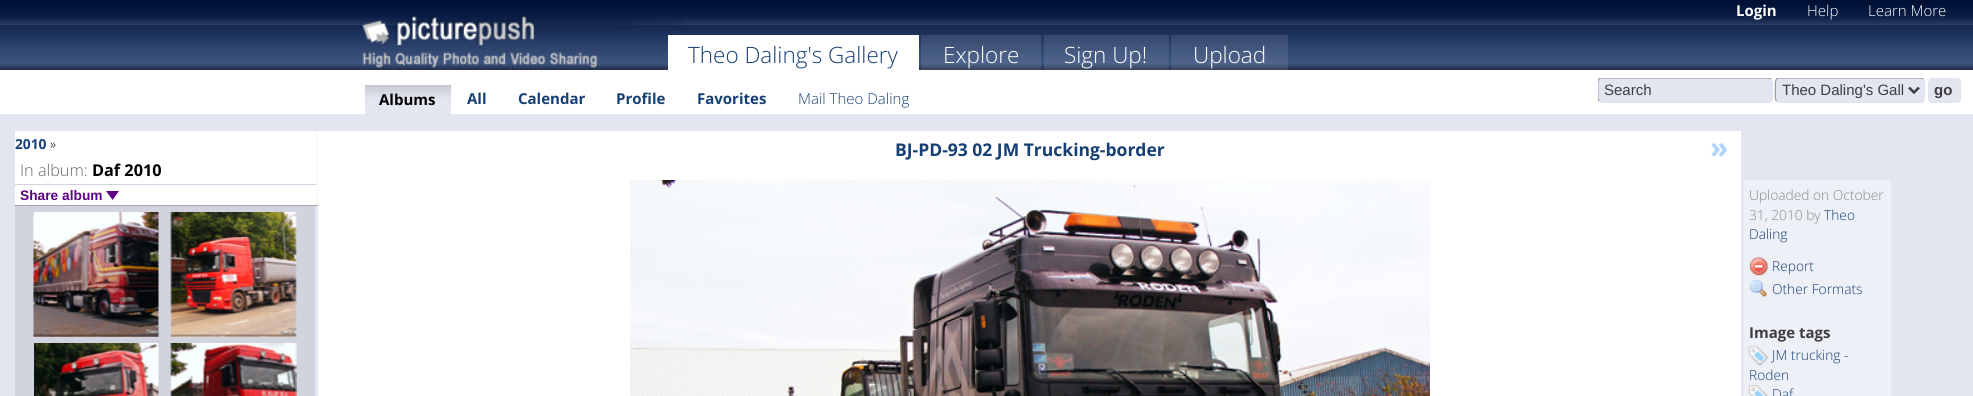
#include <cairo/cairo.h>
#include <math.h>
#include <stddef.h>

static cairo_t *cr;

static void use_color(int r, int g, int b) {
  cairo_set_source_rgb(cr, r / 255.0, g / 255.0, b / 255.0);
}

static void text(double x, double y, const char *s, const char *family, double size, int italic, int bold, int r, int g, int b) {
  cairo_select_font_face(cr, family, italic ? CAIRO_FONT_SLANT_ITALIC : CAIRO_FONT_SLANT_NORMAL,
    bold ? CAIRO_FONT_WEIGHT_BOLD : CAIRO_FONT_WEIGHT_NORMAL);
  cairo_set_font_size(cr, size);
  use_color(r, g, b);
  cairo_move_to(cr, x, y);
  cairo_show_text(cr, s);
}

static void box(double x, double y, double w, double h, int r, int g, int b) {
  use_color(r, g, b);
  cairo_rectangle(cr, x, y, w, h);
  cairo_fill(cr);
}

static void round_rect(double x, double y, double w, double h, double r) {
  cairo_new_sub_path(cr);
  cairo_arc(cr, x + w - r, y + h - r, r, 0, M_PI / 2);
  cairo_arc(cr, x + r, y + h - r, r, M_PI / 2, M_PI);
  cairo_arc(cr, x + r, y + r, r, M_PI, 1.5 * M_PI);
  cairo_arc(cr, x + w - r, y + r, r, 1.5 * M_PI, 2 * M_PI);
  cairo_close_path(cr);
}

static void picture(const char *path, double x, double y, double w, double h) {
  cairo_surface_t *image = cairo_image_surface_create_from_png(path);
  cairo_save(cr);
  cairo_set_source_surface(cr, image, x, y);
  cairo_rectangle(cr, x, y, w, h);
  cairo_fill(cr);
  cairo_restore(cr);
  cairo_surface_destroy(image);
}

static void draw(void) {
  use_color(227, 230, 241);
  cairo_paint(cr);
  picture("img_01.png", 0, 0, 1973, 70);
  picture("img_02.png", 362, 10, 322, 60);
  box(668, 35, 251, 35, 255, 255, 255);
  cairo_set_source_rgba(cr, 1, 1, 1, 0.1);
  cairo_rectangle(cr, 921, 35, 120, 35);
  cairo_fill(cr);
  cairo_rectangle(cr, 1044, 35, 125, 35);
  cairo_fill(cr);
  cairo_rectangle(cr, 1171, 35, 117, 35);
  cairo_fill(cr);
  box(0, 70, 1973, 44, 255, 255, 255);
  box(365, 85, 86, 29, 227, 230, 241);
  picture("img_03.png", 363, 85, 89, 12);
  box(364, 84, 1, 13, 255, 255, 255);
  use_color(227, 230, 241);
  round_rect(1598, 78, 175, 25, 4);
  cairo_fill(cr);
  cairo_new_path(cr);
  cairo_move_to(cr, 1771, 79);
  cairo_curve_to(cr, 1773, 81, 1772, 87.5, 1772, 90);
  cairo_curve_to(cr, 1772, 92.5, 1773.5, 101, 1769.5, 102);
  cairo_line_to(cr, 1601, 102);
  cairo_line_to(cr, 1599, 101);
  cairo_set_line_width(cr, 1.2);
  cairo_stroke(cr);
  cairo_save(cr);
  cairo_rectangle(cr, 1598, 78, 363, 30);
  cairo_clip(cr);
  cairo_new_path(cr);
  cairo_move_to(cr, 1599, 101);
  cairo_curve_to(cr, 1597, 99, 1598, 92.5, 1598, 90);
  cairo_curve_to(cr, 1598, 87.5, 1596.5, 79, 1600.5, 78);
  cairo_line_to(cr, 1769, 78);
  cairo_line_to(cr, 1771, 79);
  use_color(151, 153, 161);
  cairo_stroke(cr);
  cairo_restore(cr);
  round_rect(1775, 78, 150, 25, 4);
  cairo_fill(cr);
  cairo_new_path(cr);
  cairo_move_to(cr, 1923.5, 79);
  cairo_curve_to(cr, 1925.5, 81, 1924.5, 90, 1924.5, 93);
  cairo_curve_to(cr, 1924.5, 95.5, 1925.5, 102, 1921, 102);
  cairo_line_to(cr, 1779, 102);
  cairo_line_to(cr, 1776.5, 101);
  cairo_stroke(cr);
  cairo_save(cr);
  cairo_rectangle(cr, 1598, 78, 363, 30);
  cairo_clip(cr);
  cairo_new_path(cr);
  cairo_move_to(cr, 1776.5, 101);
  cairo_curve_to(cr, 1774.5, 99, 1775.5, 90, 1775.5, 87);
  cairo_curve_to(cr, 1775.5, 84.5, 1774.5, 78, 1779, 78);
  cairo_line_to(cr, 1921, 78);
  cairo_line_to(cr, 1923.5, 79);
  use_color(151, 153, 161);
  cairo_stroke(cr);
  cairo_restore(cr);
  cairo_new_path(cr);
  cairo_move_to(cr, 1909, 87.5);
  cairo_line_to(cr, 1914, 92.5);
  cairo_line_to(cr, 1919, 87.5);
  use_color(62, 62, 62);
  cairo_set_line_width(cr, 2.5);
  cairo_stroke(cr);
  use_color(227, 230, 241);
  round_rect(1928.5, 78.5, 32, 24, 3.5);
  cairo_fill_preserve(cr);
  cairo_set_line_width(cr, 1);
  cairo_stroke(cr);
  box(15, 131, 303, 74, 255, 255, 255);
  box(316, 131, 1, 75, 243, 243, 243);
  box(15, 205, 303, 1, 164, 164, 164);
  box(15, 184, 301, 1, 208, 208, 224);
  use_color(94, 0, 133);
  cairo_new_path(cr);
  cairo_move_to(cr, 106, 191);
  cairo_line_to(cr, 119, 191);
  cairo_line_to(cr, 112.5, 200);
  cairo_close_path(cr);
  cairo_fill(cr);
  box(15, 206, 300, 190, 209, 212, 222);
  picture("img_04.png", 33, 212, 126, 125);
  picture("img_05.png", 170, 212, 127, 125);
  picture("img_06.png", 34, 343, 125, 53);
  picture("img_07.png", 170, 343, 127, 53);
  box(318, 131, 1423, 265, 255, 255, 255);
  picture("img_08.png", 630, 180, 800, 216);
  box(1744, 180, 147, 216, 238, 240, 247);
  picture("img_09.png", 1749, 257, 19, 19);
  picture("img_10.png", 1749, 279, 18, 19);
  picture("img_11.png", 1748, 346, 21, 20);
  picture("img_12.png", 1748, 385, 20, 11);
  text(688, 63, "Theo Daling's Gallery", "Open Sans Light", 22.5, 0, 0, 22, 63, 115);
  text(943, 63, "Explore", "Open Sans Light", 22.5, 0, 0, 255, 255, 255);
  text(1064, 63, "Sign Up!", "Open Sans Light", 22.5, 0, 0, 255, 255, 255);
  text(1193, 63, "Upload", "Open Sans Light", 22.5, 0, 0, 255, 255, 255);
  text(1736, 16, "Login", "Open Sans", 15, 0, 1, 255, 255, 255);
  text(1807, 16, "Help", "Open Sans Light", 15, 0, 0, 255, 255, 255);
  text(1868, 16, "Learn More", "Open Sans Light", 15, 0, 0, 255, 255, 255);
  text(379, 105, "Albums", "Open Sans", 15, 0, 1, 0, 0, 0);
  text(467, 104, "All", "Open Sans", 15, 0, 1, 22, 63, 115);
  text(518, 104, "Calendar", "Open Sans", 15, 0, 1, 22, 63, 115);
  text(616, 104, "Profile", "Open Sans", 15, 0, 1, 22, 63, 115);
  text(697, 104, "Favorites", "Open Sans", 15, 0, 1, 22, 63, 115);
  text(798, 104, "Mail Theo Daling", "Open Sans Light", 15, 0, 0, 22, 63, 115);
  text(1604, 95, "Search", "Liberation Sans", 15, 0, 0, 62, 62, 65);
  text(1782, 95, "Theo Daling's Gall", "Liberation Sans", 15, 0, 0, 62, 62, 65);
  text(1934, 95, "go", "Liberation Sans", 15, 0, 1, 62, 62, 65);
  text(15, 149, "2010", "Open Sans", 13.75, 0, 1, 22, 63, 115);
  text(50, 149, "»", "Open Sans Light", 13.75, 0, 0, 0, 0, 0);
  text(20, 176, "In album:", "Open Sans Light", 16.25, 0, 0, 102, 102, 102);
  text(92, 176, "Daf 2010", "Open Sans", 16.25, 0, 1, 0, 0, 0);
  text(20, 200, "Share album", "Liberation Sans", 13.75, 0, 1, 94, 0, 133);
  text(895, 156, "BJ-PD-93 02 JM Trucking-border", "Open Sans", 17.5, 0, 1, 22, 63, 115);
  text(1710, 158, "»", "Open Sans", 30, 0, 1, 176, 212, 254);
  text(1749, 200, "Uploaded on October", "Open Sans Light", 13.75, 0, 0, 136, 136, 136);
  text(1749, 220, "31, 2010 by", "Open Sans Light", 13.75, 0, 0, 136, 136, 136);
  text(1824, 220, "Theo", "Open Sans Light", 13.75, 0, 0, 22, 63, 115);
  text(1749, 239, "Daling", "Open Sans Light", 13.75, 0, 0, 22, 63, 115);
  text(1772, 271, "Report", "Open Sans Light", 13.75, 0, 0, 22, 63, 115);
  text(1772, 294, "Other Formats", "Open Sans Light", 13.75, 0, 0, 22, 63, 115);
  text(1749, 338, "Image tags", "Open Sans", 15, 0, 1, 62, 62, 65);
  text(1772, 360, "JM trucking -", "Open Sans Light", 13.75, 0, 0, 22, 63, 115);
  text(1749, 380, "Roden", "Open Sans Light", 13.75, 0, 0, 22, 63, 115);
  text(1772, 399, "Daf", "Open Sans Light", 13.75, 0, 0, 22, 63, 115);
}

int main(void) {
  cairo_surface_t *surface = cairo_image_surface_create(CAIRO_FORMAT_RGB24, 1973, 396);
  cr = cairo_create(surface);
  cairo_font_options_t *options = cairo_font_options_create();
  cairo_font_options_set_hint_metrics(options, CAIRO_HINT_METRICS_OFF);
  cairo_font_options_set_hint_style(options, CAIRO_HINT_STYLE_NONE);
  cairo_set_font_options(cr, options);
  cairo_set_miter_limit(cr, 4);
  draw();
  cairo_surface_write_to_png(surface, "out.png");
  cairo_font_options_destroy(options);
  cairo_destroy(cr);
  cairo_surface_destroy(surface);
  return 0;
}
